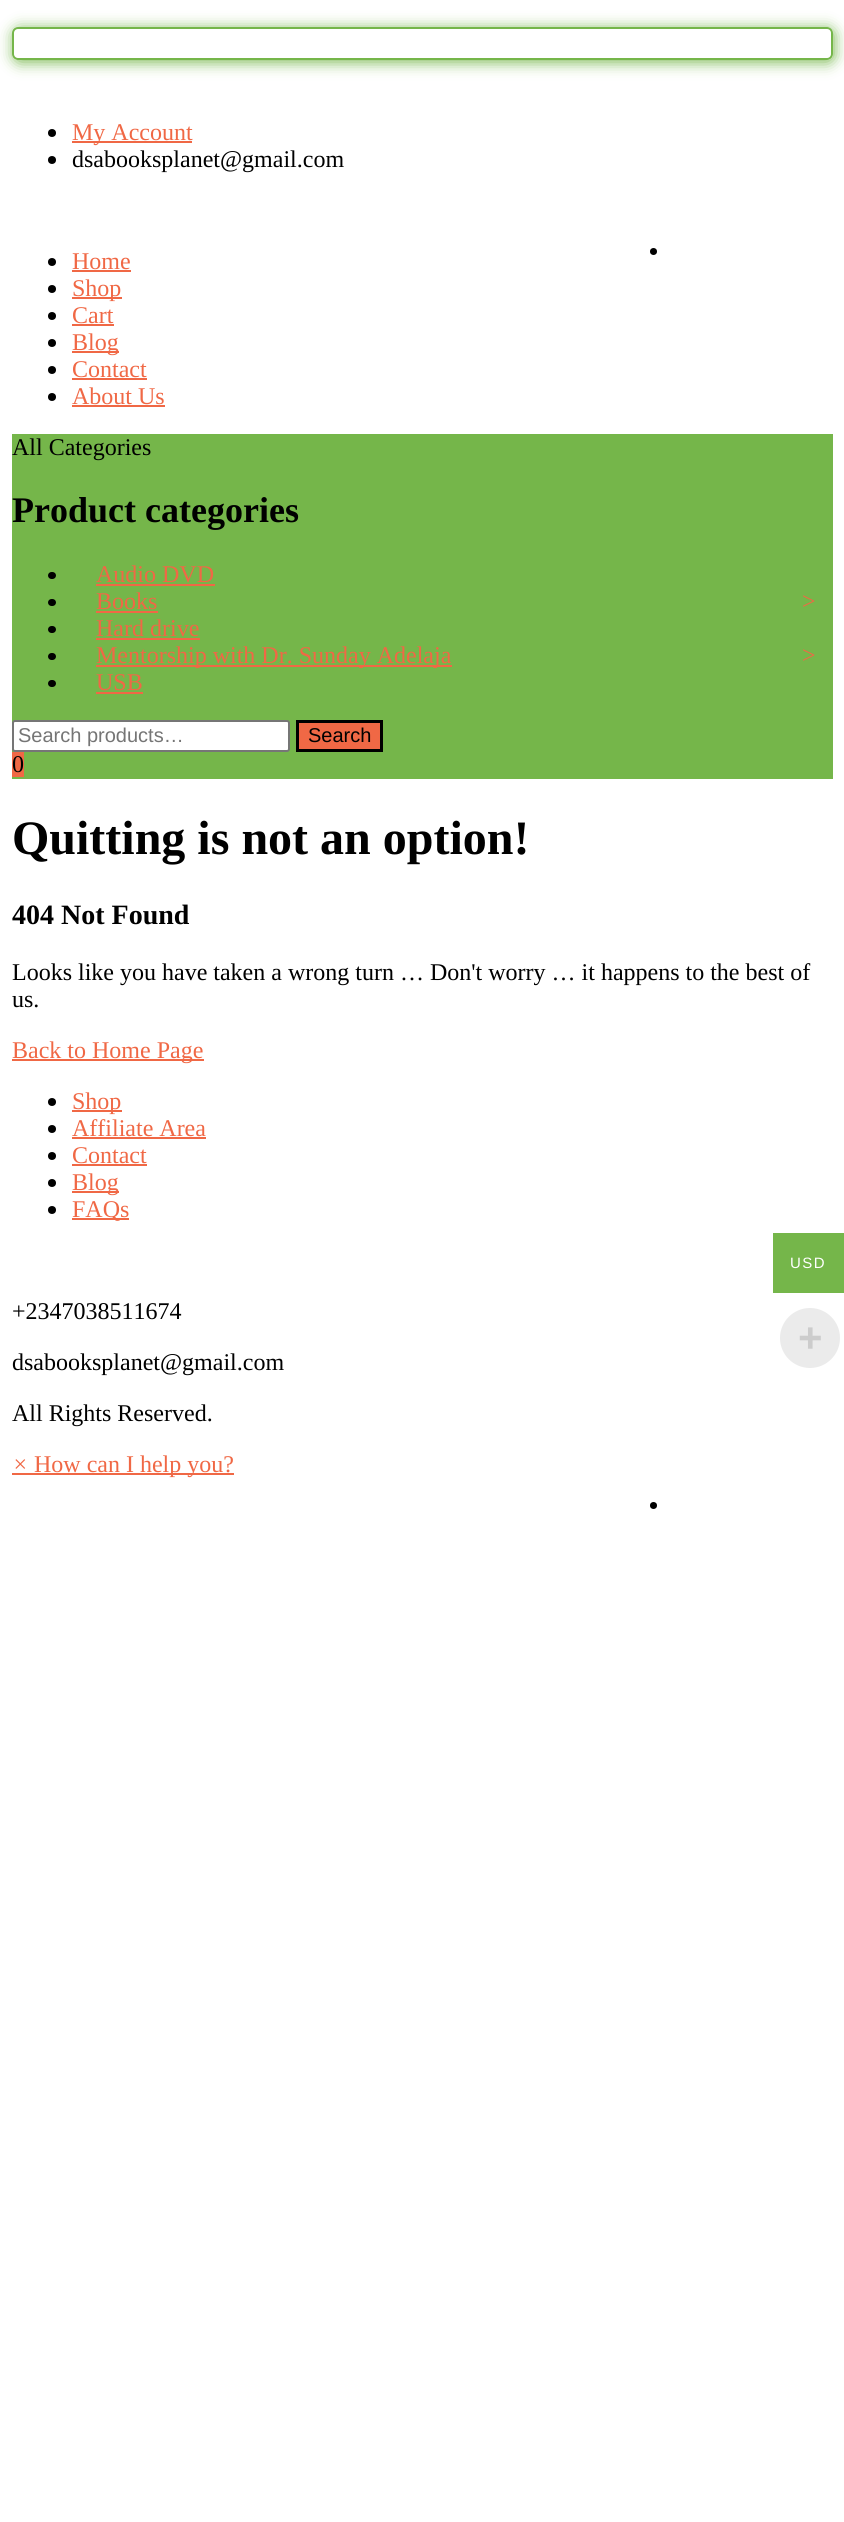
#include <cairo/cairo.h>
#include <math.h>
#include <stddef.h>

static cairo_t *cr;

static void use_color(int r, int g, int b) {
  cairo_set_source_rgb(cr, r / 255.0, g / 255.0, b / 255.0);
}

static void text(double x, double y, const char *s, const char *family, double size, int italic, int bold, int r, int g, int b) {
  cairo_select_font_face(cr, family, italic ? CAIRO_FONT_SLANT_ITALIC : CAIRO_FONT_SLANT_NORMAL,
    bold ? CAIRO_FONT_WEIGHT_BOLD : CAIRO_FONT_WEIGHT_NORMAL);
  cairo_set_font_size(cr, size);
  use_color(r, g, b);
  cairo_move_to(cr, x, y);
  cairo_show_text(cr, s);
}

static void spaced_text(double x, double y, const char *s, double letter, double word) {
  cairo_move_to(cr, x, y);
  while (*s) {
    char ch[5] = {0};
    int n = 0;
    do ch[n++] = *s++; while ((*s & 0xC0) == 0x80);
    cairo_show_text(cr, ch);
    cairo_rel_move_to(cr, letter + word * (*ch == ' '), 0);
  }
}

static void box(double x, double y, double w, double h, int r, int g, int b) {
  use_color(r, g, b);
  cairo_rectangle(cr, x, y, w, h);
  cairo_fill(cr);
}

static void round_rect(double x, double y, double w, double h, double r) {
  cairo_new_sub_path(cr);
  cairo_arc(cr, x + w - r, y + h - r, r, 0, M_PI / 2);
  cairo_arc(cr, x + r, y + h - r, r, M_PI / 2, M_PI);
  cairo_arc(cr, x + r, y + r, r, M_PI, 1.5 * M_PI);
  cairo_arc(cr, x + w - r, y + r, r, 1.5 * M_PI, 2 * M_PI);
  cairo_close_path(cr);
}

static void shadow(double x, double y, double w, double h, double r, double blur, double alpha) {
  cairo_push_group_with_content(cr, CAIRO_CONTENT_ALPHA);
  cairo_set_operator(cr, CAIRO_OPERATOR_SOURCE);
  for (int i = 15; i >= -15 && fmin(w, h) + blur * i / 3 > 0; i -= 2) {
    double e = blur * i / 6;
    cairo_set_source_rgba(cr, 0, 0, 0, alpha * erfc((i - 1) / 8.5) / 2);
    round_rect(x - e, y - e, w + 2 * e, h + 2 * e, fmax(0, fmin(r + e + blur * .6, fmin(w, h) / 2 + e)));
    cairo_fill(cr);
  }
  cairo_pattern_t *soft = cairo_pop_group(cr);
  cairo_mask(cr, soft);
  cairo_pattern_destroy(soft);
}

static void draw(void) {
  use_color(255, 255, 255);
  cairo_paint(cr);
  cairo_save(cr);
  cairo_set_fill_rule(cr, CAIRO_FILL_RULE_EVEN_ODD);
  cairo_new_path(cr);
  cairo_move_to(cr, 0, 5);
  cairo_line_to(cr, 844, 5);
  cairo_line_to(cr, 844, 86);
  cairo_line_to(cr, 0, 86);
  cairo_close_path(cr);
  cairo_move_to(cr, 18, 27);
  cairo_line_to(cr, 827, 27);
  cairo_curve_to(cr, 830.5, 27, 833, 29.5, 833, 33);
  cairo_line_to(cr, 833, 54);
  cairo_curve_to(cr, 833, 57.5, 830.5, 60, 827, 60);
  cairo_line_to(cr, 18, 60);
  cairo_curve_to(cr, 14.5, 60, 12, 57.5, 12, 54);
  cairo_line_to(cr, 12, 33);
  cairo_curve_to(cr, 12, 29.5, 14.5, 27, 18, 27);
  cairo_close_path(cr);
  cairo_clip(cr);
  use_color(117, 182, 74);
  shadow(14, 29, 820, 33, 6, 7.5, 1);
  cairo_restore(cr);
  round_rect(13, 28, 819, 31, 5);
  use_color(117, 182, 74);
  cairo_stroke(cr);
  use_color(0, 0, 0);
  cairo_arc(cr, 52, 133, 4, 0, 2 * M_PI);
  cairo_fill(cr);
  box(72, 141, 120, 2, 240, 104, 69);
  use_color(0, 0, 0);
  cairo_arc(cr, 52, 160, 4, 0, 2 * M_PI);
  cairo_fill(cr);
  cairo_arc(cr, 653.5, 251.5, 3.5, 0, 2 * M_PI);
  cairo_fill(cr);
  cairo_arc(cr, 52, 262, 4, 0, 2 * M_PI);
  cairo_fill(cr);
  box(72, 270, 59, 2, 240, 104, 69);
  use_color(0, 0, 0);
  cairo_arc(cr, 52, 289, 4, 0, 2 * M_PI);
  cairo_fill(cr);
  box(72, 297, 50, 2, 240, 104, 69);
  use_color(0, 0, 0);
  cairo_arc(cr, 52, 316, 4, 0, 2 * M_PI);
  cairo_fill(cr);
  box(72, 324, 42, 2, 240, 104, 69);
  use_color(0, 0, 0);
  cairo_arc(cr, 52, 343, 4, 0, 2 * M_PI);
  cairo_fill(cr);
  box(72, 351, 47, 2, 240, 104, 69);
  use_color(0, 0, 0);
  cairo_arc(cr, 52, 370, 4, 0, 2 * M_PI);
  cairo_fill(cr);
  box(72, 378, 75, 2, 240, 104, 69);
  use_color(0, 0, 0);
  cairo_arc(cr, 52, 397, 4, 0, 2 * M_PI);
  cairo_fill(cr);
  box(72, 405, 93, 2, 240, 104, 69);
  box(12, 434, 821, 345, 117, 182, 74);
  use_color(0, 0, 0);
  round_rect(48, 572, 8, 7, 3.5);
  cairo_fill(cr);
  box(96, 584, 119, 2, 240, 104, 69);
  use_color(0, 0, 0);
  round_rect(48, 599, 8, 7, 3.5);
  cairo_fill(cr);
  box(96, 611, 62, 2, 240, 104, 69);
  use_color(0, 0, 0);
  round_rect(48, 626, 8, 7, 3.5);
  cairo_fill(cr);
  box(96, 638, 104, 2, 240, 104, 69);
  use_color(0, 0, 0);
  round_rect(48, 653, 8, 7, 3.5);
  cairo_fill(cr);
  box(96, 665, 356, 2, 240, 104, 69);
  use_color(0, 0, 0);
  round_rect(48, 680, 8, 7, 3.5);
  cairo_fill(cr);
  box(96, 692, 47, 2, 240, 104, 69);
  use_color(255, 255, 255);
  round_rect(13, 721, 276, 30, 2);
  cairo_fill_preserve(cr);
  use_color(118, 118, 118);
  cairo_stroke(cr);
  use_color(240, 104, 69);
  cairo_rectangle(cr, 297.5, 721.5, 84, 29);
  cairo_fill_preserve(cr);
  use_color(0, 0, 0);
  cairo_set_line_width(cr, 3);
  cairo_stroke(cr);
  box(12, 752, 12, 25, 240, 104, 69);
  box(12, 1059, 192, 2, 240, 104, 69);
  use_color(0, 0, 0);
  cairo_arc(cr, 52, 1102, 4, 0, 2 * M_PI);
  cairo_fill(cr);
  box(72, 1110, 50, 2, 240, 104, 69);
  use_color(0, 0, 0);
  cairo_arc(cr, 52, 1129, 4, 0, 2 * M_PI);
  cairo_fill(cr);
  box(72, 1137, 134, 2, 240, 104, 69);
  use_color(0, 0, 0);
  cairo_arc(cr, 52, 1156, 4, 0, 2 * M_PI);
  cairo_fill(cr);
  box(72, 1164, 75, 2, 240, 104, 69);
  use_color(0, 0, 0);
  cairo_arc(cr, 52, 1183, 4, 0, 2 * M_PI);
  cairo_fill(cr);
  box(72, 1191, 47, 2, 240, 104, 69);
  use_color(0, 0, 0);
  cairo_arc(cr, 52, 1210, 4, 0, 2 * M_PI);
  cairo_fill(cr);
  box(72, 1218, 57, 2, 240, 104, 69);
  use_color(0, 0, 0);
  cairo_arc(cr, 653.5, 1505.5, 3.5, 0, 2 * M_PI);
  cairo_fill(cr);
  box(773, 1233, 71, 60, 117, 182, 74);
  use_color(235, 235, 235);
  cairo_arc(cr, 810, 1338, 30, 0, 2 * M_PI);
  cairo_fill(cr);
  box(12, 1473, 222, 2, 240, 104, 69);
  text(72, 140, "My Account", "Liberation Serif", 24, 0, 0, 240, 104, 69);
  text(72, 167, "dsabooksplanet@gmail.com", "Liberation Serif", 24, 0, 0, 0, 0, 0);
  text(72, 269, "Home", "Liberation Serif", 24, 0, 0, 240, 104, 69);
  text(72, 296, "Shop", "Liberation Serif", 24, 0, 0, 240, 104, 69);
  text(72, 323, "Cart", "Liberation Serif", 24, 0, 0, 240, 104, 69);
  text(72, 350, "Blog", "Liberation Serif", 24, 0, 0, 240, 104, 69);
  text(72, 377, "Contact", "Liberation Serif", 24, 0, 0, 240, 104, 69);
  text(72, 404, "About Us", "Liberation Serif", 24, 0, 0, 240, 104, 69);
  text(12, 455, "All Categories", "Liberation Serif", 24, 0, 0, 0, 0, 0);
  text(12, 522, "Product categories", "Liberation Serif", 36, 0, 1, 0, 0, 0);
  text(96, 582, "Audio DVD", "Liberation Serif", 24, 0, 0, 240, 104, 69);
  text(96, 609, "Books", "Liberation Serif", 24, 0, 0, 240, 104, 69);
  text(802, 609, ">", "Liberation Serif", 24, 0, 0, 240, 104, 69);
  text(96, 636, "Hard drive", "Liberation Serif", 24, 0, 0, 240, 104, 69);
  text(96, 663, "Mentorship with Dr. Sunday Adelaja", "Liberation Serif", 24, 0, 0, 240, 104, 69);
  text(802, 663, ">", "Liberation Serif", 24, 0, 0, 240, 104, 69);
  text(96, 690, "USB", "Liberation Serif", 24, 0, 0, 240, 104, 69);
  text(18, 742, "Search products…", "Liberation Sans", 20, 0, 0, 117, 117, 117);
  text(308, 742, "Search", "Liberation Sans", 20, 0, 0, 0, 0, 0);
  text(12, 772, "0", "Liberation Serif", 24, 0, 0, 0, 0, 0);
  text(12, 854, "Quitting is not an option!", "Liberation Serif", 48, 0, 1, 0, 0, 0);
  text(12, 924, "404 Not Found", "Liberation Serif", 28, 0, 1, 0, 0, 0);
  text(12, 980, "Looks like you have taken a wrong turn … Don't worry … it happens to the best of", "Liberation Serif", 24, 0, 0, 0, 0, 0);
  text(12, 1007, "us.", "Liberation Serif", 24, 0, 0, 0, 0, 0);
  text(12, 1058, "Back to Home Page", "Liberation Serif", 24, 0, 0, 240, 104, 69);
  text(72, 1109, "Shop", "Liberation Serif", 24, 0, 0, 240, 104, 69);
  text(72, 1136, "Affiliate Area", "Liberation Serif", 24, 0, 0, 240, 104, 69);
  text(72, 1163, "Contact", "Liberation Serif", 24, 0, 0, 240, 104, 69);
  text(72, 1190, "Blog", "Liberation Serif", 24, 0, 0, 240, 104, 69);
  text(72, 1217, "FAQs", "Liberation Serif", 24, 0, 0, 240, 104, 69);
  text(12, 1319, "+2347038511674", "Liberation Serif", 24, 0, 0, 0, 0, 0);
  text(12, 1370, "dsabooksplanet@gmail.com", "Liberation Serif", 24, 0, 0, 0, 0, 0);
  text(12, 1421, "All Rights Reserved.", "Liberation Serif", 24, 0, 0, 0, 0, 0);
  cairo_select_font_face(cr, "Liberation Sans", CAIRO_FONT_SLANT_NORMAL, CAIRO_FONT_WEIGHT_NORMAL);
  cairo_set_font_size(cr, 15);
  use_color(255, 255, 255);
  spaced_text(790, 1268, "USD", 1.5, 0);
  text(798, 1352, "+", "Liberation Sans", 42, 0, 1, 204, 204, 204);
  text(12, 1472, "×", "Liberation Serif", 24, 1, 0, 240, 104, 69);
  text(34, 1472, "How can I help you?", "Liberation Serif", 24, 0, 0, 240, 104, 69);
}

int main(void) {
  cairo_surface_t *surface = cairo_image_surface_create(CAIRO_FORMAT_RGB24, 844, 2522);
  cr = cairo_create(surface);
  cairo_font_options_t *options = cairo_font_options_create();
  cairo_font_options_set_hint_metrics(options, CAIRO_HINT_METRICS_OFF);
  cairo_font_options_set_hint_style(options, CAIRO_HINT_STYLE_NONE);
  cairo_set_font_options(cr, options);
  cairo_set_miter_limit(cr, 4);
  draw();
  cairo_surface_write_to_png(surface, "out.png");
  cairo_font_options_destroy(options);
  cairo_destroy(cr);
  cairo_surface_destroy(surface);
  return 0;
}
